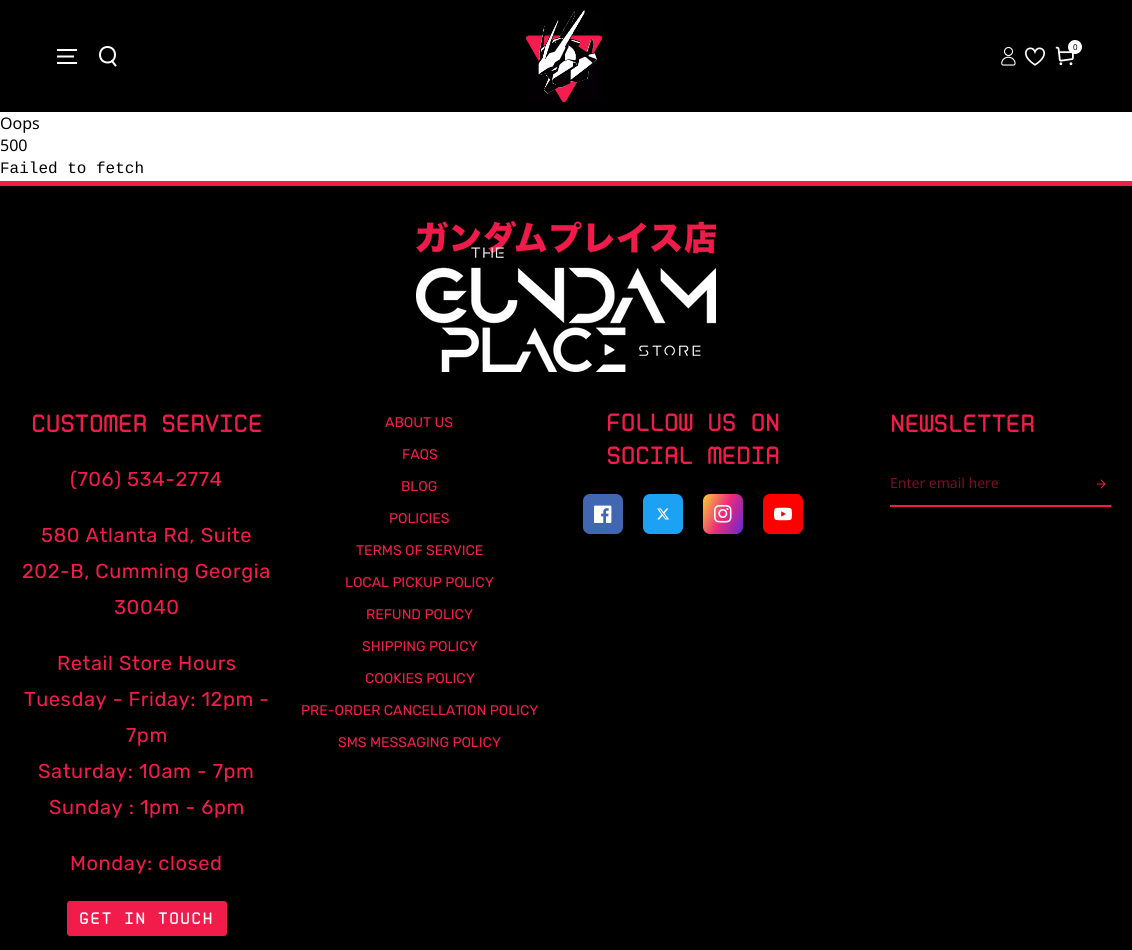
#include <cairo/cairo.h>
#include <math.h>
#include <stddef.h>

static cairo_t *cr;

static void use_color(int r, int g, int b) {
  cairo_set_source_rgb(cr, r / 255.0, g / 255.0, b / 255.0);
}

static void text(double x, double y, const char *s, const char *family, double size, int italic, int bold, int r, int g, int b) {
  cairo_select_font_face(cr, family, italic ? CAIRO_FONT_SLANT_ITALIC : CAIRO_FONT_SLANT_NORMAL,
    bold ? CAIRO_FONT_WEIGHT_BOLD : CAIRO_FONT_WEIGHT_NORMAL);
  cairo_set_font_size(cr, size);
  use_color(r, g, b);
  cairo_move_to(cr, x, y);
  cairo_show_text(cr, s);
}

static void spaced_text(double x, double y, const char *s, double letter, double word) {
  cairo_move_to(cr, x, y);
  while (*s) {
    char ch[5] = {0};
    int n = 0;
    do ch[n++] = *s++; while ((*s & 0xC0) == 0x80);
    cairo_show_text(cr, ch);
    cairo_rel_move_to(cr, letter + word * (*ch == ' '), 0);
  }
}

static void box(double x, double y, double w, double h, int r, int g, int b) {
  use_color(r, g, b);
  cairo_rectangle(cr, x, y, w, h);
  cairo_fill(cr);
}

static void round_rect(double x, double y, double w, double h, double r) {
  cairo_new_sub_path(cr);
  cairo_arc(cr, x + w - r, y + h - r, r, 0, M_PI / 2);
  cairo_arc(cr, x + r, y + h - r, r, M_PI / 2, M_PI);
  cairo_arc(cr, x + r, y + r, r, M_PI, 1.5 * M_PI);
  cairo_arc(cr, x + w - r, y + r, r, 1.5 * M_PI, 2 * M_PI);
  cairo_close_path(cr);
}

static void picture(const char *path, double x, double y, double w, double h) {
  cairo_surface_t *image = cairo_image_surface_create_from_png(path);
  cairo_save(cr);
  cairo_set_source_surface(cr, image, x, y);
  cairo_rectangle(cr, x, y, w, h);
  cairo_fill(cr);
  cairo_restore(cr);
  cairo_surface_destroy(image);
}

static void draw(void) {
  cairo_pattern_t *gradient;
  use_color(255, 255, 255);
  cairo_paint(cr);
  box(0, 0, 1132, 112, 0, 0, 0);
  cairo_new_path(cr);
  cairo_move_to(cr, 57, 63);
  cairo_line_to(cr, 77, 63);
  cairo_move_to(cr, 57, 56.5);
  cairo_line_to(cr, 74, 56.5);
  cairo_move_to(cr, 57, 50);
  cairo_line_to(cr, 77, 50);
  use_color(255, 255, 255);
  cairo_stroke(cr);
  cairo_new_path(cr);
  cairo_move_to(cr, 107.5, 62.5);
  cairo_curve_to(cr, 117.5, 62.5, 117.5, 47, 107.5, 47);
  cairo_curve_to(cr, 97.5, 47, 97.5, 62.5, 107.5, 62.5);
  cairo_close_path(cr);
  cairo_stroke(cr);
  cairo_new_path(cr);
  cairo_move_to(cr, 112, 61);
  cairo_line_to(cr, 115.5, 65.5);
  cairo_set_line_cap(cr, CAIRO_LINE_CAP_ROUND);
  cairo_stroke(cr);
  picture("img_01.png", 526, 10, 76, 92);
  picture("img_02.png", 1001, 46, 15, 20);
  picture("img_03.png", 1025, 47, 20, 19);
  picture("img_04.png", 1055, 46, 19, 20);
  cairo_arc(cr, 1075, 47, 7, 0, 2 * M_PI);
  cairo_fill(cr);
  box(0, 186, 1132, 764, 0, 0, 0);
  box(0, 181, 1132, 5, 242, 28, 75);
  picture("img_05.png", 416, 221, 300, 151);
  round_rect(67, 901, 160, 35, 3);
  cairo_fill(cr);
  use_color(66, 103, 178);
  round_rect(583, 494, 40, 40, 7);
  cairo_fill(cr);
  picture("img_06.png", 594, 505, 18, 18);
  use_color(29, 161, 242);
  round_rect(643, 494, 40, 40, 7);
  cairo_fill(cr);
  picture("img_07.png", 657, 508, 12, 12);
  gradient = cairo_pattern_create_linear(699, 503, 747, 525);
  cairo_pattern_add_color_stop_rgba(gradient, 0, 0.976, 0.808, 0.204, 1);
  cairo_pattern_add_color_stop_rgba(gradient, 0.5, 0.933, 0.165, 0.482, 1);
  cairo_pattern_add_color_stop_rgba(gradient, 1, 0.384, 0.157, 0.843, 1);
  cairo_set_source(cr, gradient);
  cairo_pattern_destroy(gradient);
  round_rect(703, 494, 40, 40, 7);
  cairo_fill(cr);
  picture("img_08.png", 714, 505, 18, 18);
  use_color(255, 0, 0);
  round_rect(763, 494, 40, 40, 7);
  cairo_fill(cr);
  picture("img_09.png", 774, 507, 18, 14);
  box(890, 505, 221, 2, 242, 28, 75);
  picture("img_10.png", 1097, 479, 9, 10);
  text(1073, 50, "0", "Noto Sans", 8, 0, 0, 0, 0, 0);
  text(0, 129, "Oops", "Noto Sans", 16, 0, 0, 0, 0, 0);
  text(0, 151, "500", "Noto Sans", 16, 0, 0, 0, 0, 0);
  text(0, 173, "Failed to fetch", "Liberation Mono", 16, 0, 0, 0, 0, 0);
  text(31, 432, "CUSTOMER SERVICE", "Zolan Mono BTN", 24, 0, 1, 242, 28, 75);
  cairo_select_font_face(cr, "Rubik", CAIRO_FONT_SLANT_NORMAL, CAIRO_FONT_WEIGHT_NORMAL);
  cairo_set_font_size(cr, 20);
  spaced_text(70, 486, "(706) 534-2774", 0.6, 0);
  spaced_text(41, 542, "580 Atlanta Rd, Suite", 0.6, 0);
  spaced_text(22, 578, "202-B, Cumming Georgia", 0.6, 0);
  spaced_text(114, 614, "30040", 0.6, 0);
  spaced_text(57, 670, "Retail Store Hours", 0.6, 0);
  spaced_text(24, 706, "Tuesday - Friday: 12pm -", 0.6, 0);
  spaced_text(126, 742, "7pm", 0.6, 0);
  spaced_text(38, 778, "Saturday: 10am - 7pm", 0.6, 0);
  spaced_text(49, 814, "Sunday : 1pm - 6pm", 0.6, 0);
  spaced_text(70, 870, "Monday: closed", 0.6, 0);
  cairo_select_font_face(cr, "Zolan Mono BTN", CAIRO_FONT_SLANT_NORMAL, CAIRO_FONT_WEIGHT_BOLD);
  cairo_set_font_size(cr, 16);
  use_color(255, 255, 255);
  spaced_text(79, 924, "GET IN TOUCH", 1.6, 0);
  text(385, 427, "ABOUT US", "Rubik", 14, 0, 0, 242, 28, 75);
  text(402, 459, "FAQS", "Rubik", 14, 0, 0, 242, 28, 75);
  text(401, 491, "BLOG", "Rubik", 14, 0, 0, 242, 28, 75);
  text(389, 523, "POLICIES", "Rubik", 14, 0, 0, 242, 28, 75);
  text(356, 555, "TERMS OF SERVICE", "Rubik", 14, 0, 0, 242, 28, 75);
  text(345, 587, "LOCAL PICKUP POLICY", "Rubik", 14, 0, 0, 242, 28, 75);
  text(366, 619, "REFUND POLICY", "Rubik", 14, 0, 0, 242, 28, 75);
  text(362, 651, "SHIPPING POLICY", "Rubik", 14, 0, 0, 242, 28, 75);
  text(365, 683, "COOKIES POLICY", "Rubik", 14, 0, 0, 242, 28, 75);
  text(301, 715, "PRE-ORDER CANCELLATION POLICY", "Rubik", 14, 0, 0, 242, 28, 75);
  text(338, 747, "SMS MESSAGING POLICY", "Rubik", 14, 0, 0, 242, 28, 75);
  text(606, 431, "FOLLOW US ON", "Zolan Mono BTN", 24, 0, 1, 242, 28, 75);
  text(606, 464, "SOCIAL MEDIA", "Zolan Mono BTN", 24, 0, 1, 242, 28, 75);
  text(890, 432, "NEWSLETTER", "Zolan Mono BTN", 24, 0, 1, 242, 28, 75);
  text(890, 488, "Enter email here", "Noto Sans", 14, 0, 0, 121, 14, 38);
}

int main(void) {
  cairo_surface_t *surface = cairo_image_surface_create(CAIRO_FORMAT_RGB24, 1132, 950);
  cr = cairo_create(surface);
  cairo_font_options_t *options = cairo_font_options_create();
  cairo_font_options_set_hint_metrics(options, CAIRO_HINT_METRICS_OFF);
  cairo_font_options_set_hint_style(options, CAIRO_HINT_STYLE_NONE);
  cairo_set_font_options(cr, options);
  cairo_set_miter_limit(cr, 4);
  draw();
  cairo_surface_write_to_png(surface, "out.png");
  cairo_font_options_destroy(options);
  cairo_destroy(cr);
  cairo_surface_destroy(surface);
  return 0;
}
